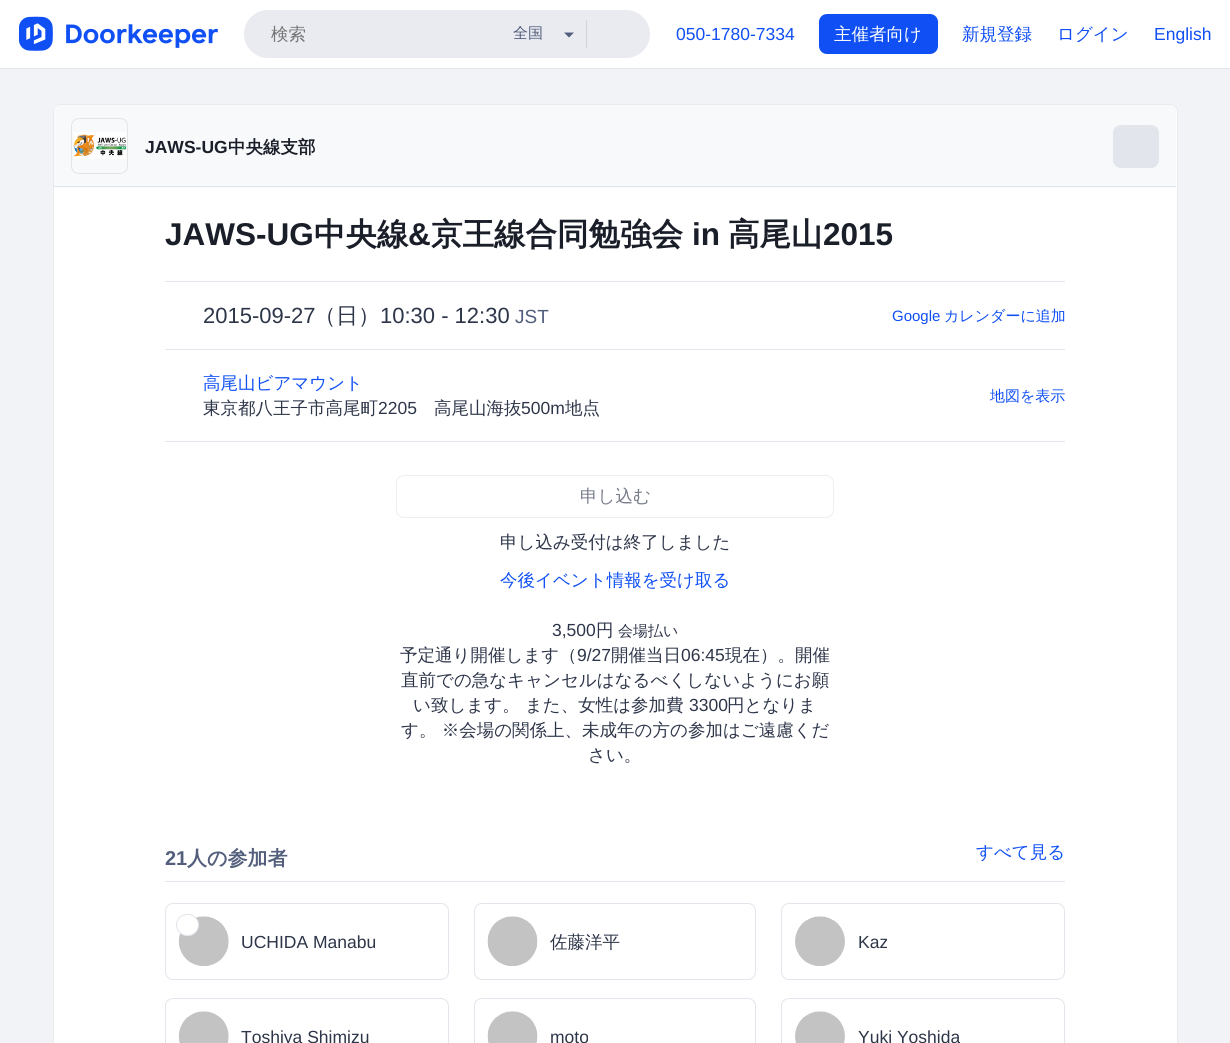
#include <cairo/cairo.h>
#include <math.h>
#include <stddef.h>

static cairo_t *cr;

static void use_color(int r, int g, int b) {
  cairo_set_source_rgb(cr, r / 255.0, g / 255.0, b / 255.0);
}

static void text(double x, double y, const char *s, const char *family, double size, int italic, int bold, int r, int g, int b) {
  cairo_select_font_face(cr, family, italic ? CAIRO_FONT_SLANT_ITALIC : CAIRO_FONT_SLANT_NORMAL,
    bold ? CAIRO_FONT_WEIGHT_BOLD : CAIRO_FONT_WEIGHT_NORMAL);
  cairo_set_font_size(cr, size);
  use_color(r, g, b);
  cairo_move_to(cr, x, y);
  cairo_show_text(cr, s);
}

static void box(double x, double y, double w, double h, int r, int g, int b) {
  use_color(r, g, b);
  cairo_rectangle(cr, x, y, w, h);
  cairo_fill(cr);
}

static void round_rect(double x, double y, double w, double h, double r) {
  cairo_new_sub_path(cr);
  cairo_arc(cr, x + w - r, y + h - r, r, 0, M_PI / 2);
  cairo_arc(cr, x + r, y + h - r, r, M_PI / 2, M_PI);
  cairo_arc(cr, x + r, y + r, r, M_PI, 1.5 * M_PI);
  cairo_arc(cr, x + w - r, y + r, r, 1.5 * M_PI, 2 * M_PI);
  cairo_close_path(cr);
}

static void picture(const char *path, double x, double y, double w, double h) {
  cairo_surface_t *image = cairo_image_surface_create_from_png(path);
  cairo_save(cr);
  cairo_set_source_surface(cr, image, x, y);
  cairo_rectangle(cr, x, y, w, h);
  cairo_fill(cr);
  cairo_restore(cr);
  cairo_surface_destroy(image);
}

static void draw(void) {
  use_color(255, 255, 255);
  cairo_paint(cr);
  box(0, 68, 1230, 1, 227, 229, 236);
  picture("img_01.png", 19, 16, 199, 35);
  use_color(233, 235, 240);
  round_rect(244, 10, 406, 48, 24);
  cairo_fill(cr);
  box(586, 20, 1, 28, 210, 212, 216);
  use_color(83, 94, 124);
  cairo_new_path(cr);
  cairo_move_to(cr, 564, 32.5);
  cairo_line_to(cr, 574, 32.5);
  cairo_line_to(cr, 569, 37.5);
  cairo_close_path(cr);
  cairo_fill(cr);
  use_color(15, 79, 244);
  round_rect(819, 14, 119, 40, 8);
  cairo_fill(cr);
  box(0, 69, 1230, 974, 242, 243, 246);
  use_color(255, 255, 255);
  round_rect(53, 104, 1125, 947, 8);
  cairo_fill(cr);
  round_rect(53.5, 104.5, 1124, 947, 7.5);
  cairo_set_source_rgba(cr, 0.173, 0.192, 0.275, 0.1);
  cairo_set_line_width(cr, 1);
  cairo_stroke(cr);
  use_color(248, 249, 250);
  cairo_new_path(cr);
  cairo_move_to(cr, 60, 105);
  cairo_line_to(cr, 1170, 105);
  cairo_curve_to(cr, 1173.5, 105, 1176, 107.5, 1176, 111);
  cairo_line_to(cr, 1176, 188);
  cairo_line_to(cr, 54, 188);
  cairo_line_to(cr, 54, 111);
  cairo_curve_to(cr, 54, 107.5, 56.5, 105, 60, 105);
  cairo_close_path(cr);
  cairo_fill(cr);
  box(54, 186, 1122, 1, 227, 229, 236);
  round_rect(71.5, 118.5, 56, 55, 7.5);
  use_color(228, 229, 230);
  cairo_stroke(cr);
  picture("img_02.png", 73, 132, 53, 27);
  use_color(227, 229, 236);
  round_rect(1113, 125, 46, 43, 8);
  cairo_fill(cr);
  box(165, 281, 900, 1, 227, 229, 236);
  box(165, 349, 900, 1, 227, 229, 236);
  box(165, 441, 900, 1, 227, 229, 236);
  round_rect(396.5, 475.5, 437, 42, 7.5);
  use_color(237, 238, 243);
  cairo_stroke(cr);
  box(165, 881, 900, 1, 227, 229, 236);
  round_rect(165.5, 903.5, 283, 76, 7.5);
  cairo_stroke(cr);
  picture("img_03.png", 178, 916, 51, 50);
  use_color(255, 255, 255);
  round_rect(176.5, 914.5, 22, 21, 10.5);
  cairo_fill_preserve(cr);
  use_color(227, 229, 236);
  cairo_stroke(cr);
  round_rect(474.5, 903.5, 281, 76, 7.5);
  cairo_stroke(cr);
  picture("img_04.png", 487, 916, 51, 50);
  round_rect(781.5, 903.5, 283, 76, 7.5);
  cairo_stroke(cr);
  picture("img_05.png", 795, 916, 50, 50);
  round_rect(165.5, 998.5, 283, 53, 7.5);
  cairo_stroke(cr);
  picture("img_06.png", 178, 1011, 51, 32);
  round_rect(474.5, 998.5, 281, 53, 7.5);
  cairo_stroke(cr);
  picture("img_07.png", 487, 1011, 51, 32);
  round_rect(781.5, 998.5, 283, 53, 7.5);
  cairo_stroke(cr);
  picture("img_08.png", 795, 1011, 50, 32);
  text(271, 40, "検索", "WenQuanYi Zen Hei Medium", 17.5, 0, 0, 117, 117, 117);
  text(513, 38, "全国", "WenQuanYi Zen Hei Medium", 15, 0, 0, 83, 94, 124);
  text(676, 40, "050-1780-7334", "Liberation Sans", 17.5, 0, 0, 15, 79, 244);
  text(834, 40, "主催者向け", "WenQuanYi Zen Hei Medium", 17.5, 0, 0, 255, 255, 255);
  text(962, 40, "新規登録", "WenQuanYi Zen Hei Medium", 17.5, 0, 0, 15, 79, 244);
  text(1057, 40, "ログイン", "WenQuanYi Zen Hei Medium", 17.5, 0, 0, 15, 79, 244);
  text(1154, 40, "English", "Liberation Sans", 17.5, 0, 0, 15, 79, 244);
  text(145, 153, "JAWS-UG", "Liberation Sans", 17.5, 0, 1, 26, 30, 41);
  text(228, 153, "中央線支部", "WenQuanYi Zen Hei", 17.5, 0, 1, 26, 30, 41);
  text(165, 245, "JAWS-UG", "Liberation Sans", 31.5, 0, 1, 26, 30, 41);
  text(314, 245, "中央線", "WenQuanYi Zen Hei", 31.5, 0, 1, 26, 30, 41);
  text(408, 245, "&", "Liberation Sans", 31.5, 0, 1, 26, 30, 41);
  text(431, 245, "京王線合同勉強会", "WenQuanYi Zen Hei", 31.5, 0, 1, 26, 30, 41);
  text(692, 245, "in", "Liberation Sans", 31.5, 0, 1, 26, 30, 41);
  text(728, 245, "高尾山", "WenQuanYi Zen Hei", 31.5, 0, 1, 26, 30, 41);
  text(823, 245, "2015", "Liberation Sans", 31.5, 0, 1, 26, 30, 41);
  text(203, 323, "2015-09-27", "Liberation Sans", 22, 0, 0, 45, 53, 73);
  text(314, 323, "（日）", "WenQuanYi Zen Hei Medium", 22, 0, 0, 45, 53, 73);
  text(380, 323, "10:30 - 12:30", "Liberation Sans", 22, 0, 0, 45, 53, 73);
  text(515, 323, "JST", "Liberation Sans", 19, 0, 0, 83, 94, 124);
  text(892, 321, "Google", "Liberation Sans", 15, 0, 0, 15, 79, 244);
  text(944, 321, "カレンダーに追加", "WenQuanYi Zen Hei Medium", 15, 0, 0, 15, 79, 244);
  text(203, 389, "高尾山ビアマウント", "WenQuanYi Zen Hei Medium", 17.5, 0, 0, 15, 79, 244);
  text(203, 414, "東京都八王子市高尾町", "WenQuanYi Zen Hei Medium", 17.5, 0, 0, 45, 53, 73);
  text(378, 414, "2205", "Liberation Sans", 17.5, 0, 0, 45, 53, 73);
  text(434, 414, "高尾山海抜", "WenQuanYi Zen Hei Medium", 17.5, 0, 0, 45, 53, 73);
  text(521, 414, "500m", "Liberation Sans", 17.5, 0, 0, 45, 53, 73);
  text(565, 414, "地点", "WenQuanYi Zen Hei Medium", 17.5, 0, 0, 45, 53, 73);
  text(990, 401, "地図を表示", "WenQuanYi Zen Hei Medium", 15, 0, 0, 15, 79, 244);
  text(580, 502, "申し込む", "WenQuanYi Zen Hei Medium", 17.5, 0, 0, 119, 124, 137);
  text(500, 548, "申し込み受付は終了しました", "WenQuanYi Zen Hei Medium", 17.5, 0, 0, 45, 53, 73);
  text(500, 586, "今後イベント情報を受け取る", "WenQuanYi Zen Hei Medium", 17.5, 0, 0, 15, 79, 244);
  text(552, 636, "3,500", "Liberation Sans", 17.5, 0, 0, 45, 53, 73);
  text(596, 636, "円", "WenQuanYi Zen Hei Medium", 17.5, 0, 0, 45, 53, 73);
  text(618, 636, "会場払い", "WenQuanYi Zen Hei Medium", 15, 0, 0, 45, 53, 73);
  text(400, 661, "予定通り開催します（", "WenQuanYi Zen Hei Medium", 17.5, 0, 0, 45, 53, 73);
  text(577, 661, "9/27", "Liberation Sans", 17.5, 0, 0, 45, 53, 73);
  text(611, 661, "開催当日", "WenQuanYi Zen Hei Medium", 17.5, 0, 0, 45, 53, 73);
  text(681, 661, "06:45", "Liberation Sans", 17.5, 0, 0, 45, 53, 73);
  text(725, 661, "現在）。開催", "WenQuanYi Zen Hei Medium", 17.5, 0, 0, 45, 53, 73);
  text(401, 686, "直前での急なキャンセルはなるべくしないようにお願", "WenQuanYi Zen Hei Medium", 17.5, 0, 0, 45, 53, 73);
  text(413, 711, "い致します。 また、女性は参加費", "WenQuanYi Zen Hei Medium", 17.5, 0, 0, 45, 53, 73);
  text(689, 711, "3300", "Liberation Sans", 17.5, 0, 0, 45, 53, 73);
  text(727, 711, "円となりま", "WenQuanYi Zen Hei Medium", 17.5, 0, 0, 45, 53, 73);
  text(401, 736, "す。 ※会場の関係上、未成年の方の参加はご遠慮くだ", "WenQuanYi Zen Hei Medium", 17.5, 0, 0, 45, 53, 73);
  text(588, 761, "さい。", "WenQuanYi Zen Hei Medium", 17.5, 0, 0, 45, 53, 73);
  text(165, 865, "21", "Liberation Sans", 20, 0, 1, 83, 94, 124);
  text(187, 865, "人の参加者", "WenQuanYi Zen Hei", 20, 0, 1, 83, 94, 124);
  text(976, 858, "すべて見る", "WenQuanYi Zen Hei Medium", 17.5, 0, 0, 15, 79, 244);
  text(241, 948, "UCHIDA Manabu", "Liberation Sans", 17.5, 0, 0, 45, 53, 73);
  text(550, 948, "佐藤洋平", "WenQuanYi Zen Hei Medium", 17.5, 0, 0, 45, 53, 73);
  text(858, 948, "Kaz", "Liberation Sans", 17.5, 0, 0, 45, 53, 73);
  text(241, 1043, "Toshiya Shimizu", "Liberation Sans", 17.5, 0, 0, 45, 53, 73);
  text(550, 1043, "moto", "Liberation Sans", 17.5, 0, 0, 45, 53, 73);
  text(858, 1043, "Yuki Yoshida", "Liberation Sans", 17.5, 0, 0, 45, 53, 73);
}

int main(void) {
  cairo_surface_t *surface = cairo_image_surface_create(CAIRO_FORMAT_RGB24, 1230, 1043);
  cr = cairo_create(surface);
  cairo_font_options_t *options = cairo_font_options_create();
  cairo_font_options_set_hint_metrics(options, CAIRO_HINT_METRICS_OFF);
  cairo_font_options_set_hint_style(options, CAIRO_HINT_STYLE_NONE);
  cairo_set_font_options(cr, options);
  cairo_set_miter_limit(cr, 4);
  draw();
  cairo_surface_write_to_png(surface, "out.png");
  cairo_font_options_destroy(options);
  cairo_destroy(cr);
  cairo_surface_destroy(surface);
  return 0;
}
